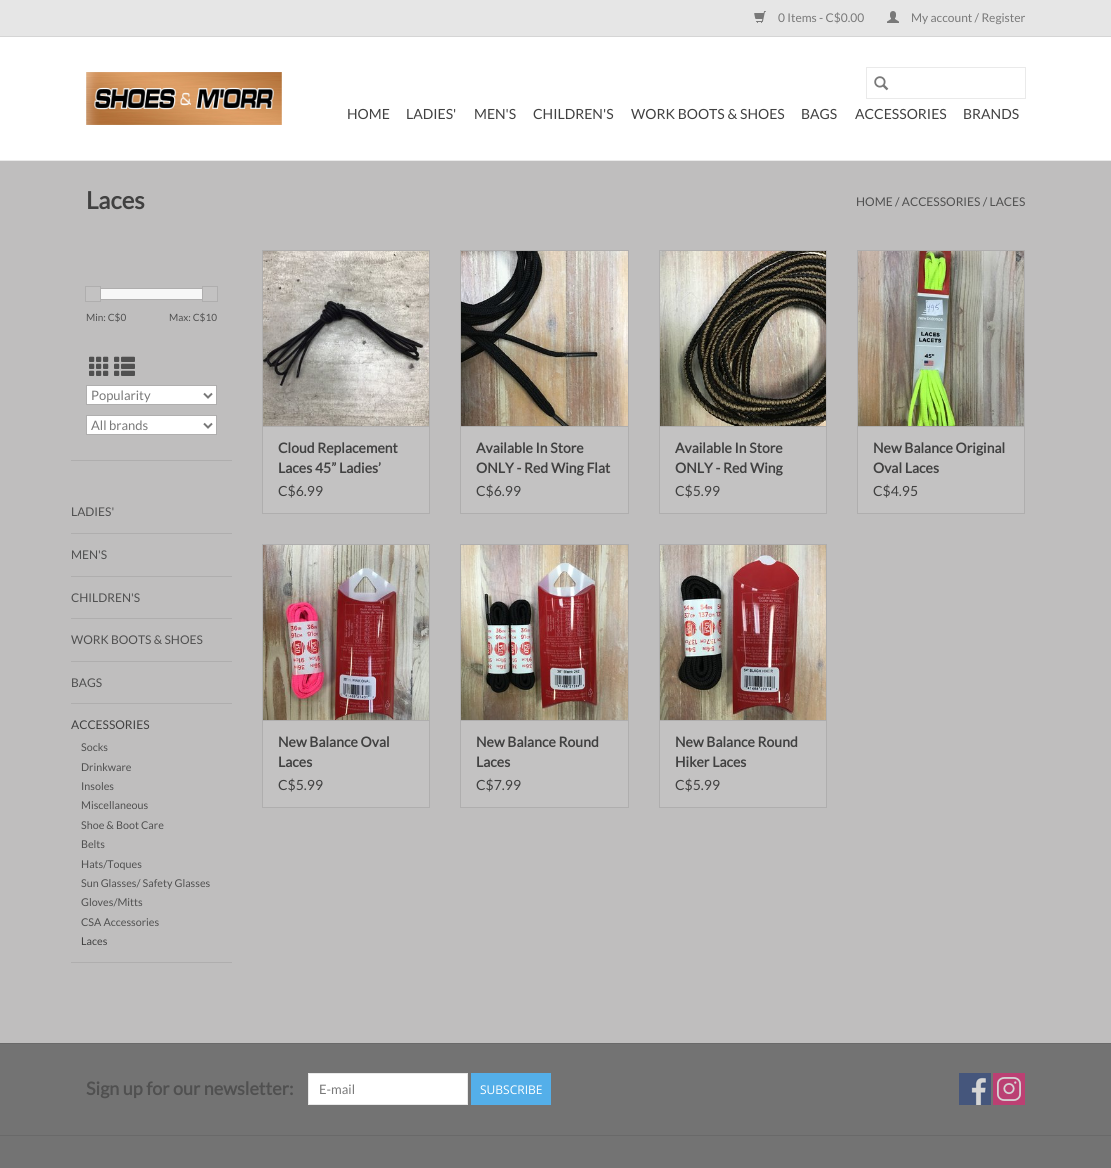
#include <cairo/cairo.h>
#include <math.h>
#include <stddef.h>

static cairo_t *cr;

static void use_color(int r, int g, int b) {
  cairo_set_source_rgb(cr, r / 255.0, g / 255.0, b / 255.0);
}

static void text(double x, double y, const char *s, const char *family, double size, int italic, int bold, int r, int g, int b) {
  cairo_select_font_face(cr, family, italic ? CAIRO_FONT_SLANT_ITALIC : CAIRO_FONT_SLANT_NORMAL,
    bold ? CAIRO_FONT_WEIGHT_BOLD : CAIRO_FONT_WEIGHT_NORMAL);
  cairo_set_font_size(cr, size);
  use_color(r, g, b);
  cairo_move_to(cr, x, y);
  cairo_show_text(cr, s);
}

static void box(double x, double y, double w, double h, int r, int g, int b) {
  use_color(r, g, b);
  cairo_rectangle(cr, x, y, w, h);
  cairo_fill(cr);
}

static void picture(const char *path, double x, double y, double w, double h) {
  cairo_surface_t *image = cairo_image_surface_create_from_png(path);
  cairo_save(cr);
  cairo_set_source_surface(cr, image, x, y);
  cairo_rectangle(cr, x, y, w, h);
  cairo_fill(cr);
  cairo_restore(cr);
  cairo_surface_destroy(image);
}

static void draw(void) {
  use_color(191, 190, 190);
  cairo_paint(cr);
  box(0, 37, 1111, 123, 255, 255, 255);
  box(0, 160, 1111, 1, 234, 234, 234);
  box(0, 0, 1111, 36, 230, 230, 230);
  box(0, 36, 1111, 1, 213, 213, 213);
  picture("img_01.png", 754, 11, 12, 12);
  picture("img_02.png", 887, 11, 12, 12);
  picture("img_03.png", 86, 72, 196, 53);
  cairo_rectangle(cr, 866.5, 67.5, 159, 31);
  use_color(234, 234, 234);
  cairo_set_line_width(cr, 1);
  cairo_stroke(cr);
  picture("img_04.png", 874, 76, 15, 15);
  box(71, 460, 161, 1, 175, 174, 174);
  box(101, 289, 101, 10, 247, 247, 247);
  cairo_rectangle(cr, 94.5, 288.5, 116, 11);
  use_color(175, 174, 174);
  cairo_stroke(cr);
  use_color(195, 194, 194);
  cairo_rectangle(cr, 85.5, 286.5, 15, 15);
  cairo_fill_preserve(cr);
  use_color(175, 174, 174);
  cairo_stroke(cr);
  use_color(195, 194, 194);
  cairo_rectangle(cr, 202.5, 286.5, 15, 15);
  cairo_fill_preserve(cr);
  use_color(175, 174, 174);
  cairo_stroke(cr);
  picture("img_05.png", 89, 356, 20, 20);
  picture("img_06.png", 114, 356, 21, 20);
  use_color(255, 255, 255);
  cairo_rectangle(cr, 86.5, 385.5, 130, 19);
  cairo_fill_preserve(cr);
  use_color(175, 174, 174);
  cairo_stroke(cr);
  cairo_new_path(cr);
  cairo_move_to(cr, 204, 393.5);
  cairo_line_to(cr, 208, 397.5);
  cairo_line_to(cr, 212, 393.5);
  use_color(119, 119, 119);
  cairo_set_line_width(cr, 2);
  cairo_stroke(cr);
  use_color(255, 255, 255);
  cairo_rectangle(cr, 86.5, 415.5, 130, 19);
  cairo_fill_preserve(cr);
  use_color(175, 174, 174);
  cairo_set_line_width(cr, 1);
  cairo_stroke(cr);
  cairo_new_path(cr);
  cairo_move_to(cr, 204, 423.5);
  cairo_line_to(cr, 208, 427.5);
  cairo_line_to(cr, 212, 423.5);
  use_color(119, 119, 119);
  cairo_set_line_width(cr, 2);
  cairo_stroke(cr);
  box(71, 533, 161, 1, 175, 174, 174);
  box(71, 576, 161, 1, 175, 174, 174);
  box(71, 618, 161, 1, 175, 174, 174);
  box(71, 661, 161, 1, 175, 174, 174);
  box(71, 703, 161, 1, 175, 174, 174);
  box(71, 962, 161, 1, 175, 174, 174);
  box(262, 250, 168, 1, 175, 174, 174);
  box(429, 250, 1, 176, 175, 174, 174);
  box(262, 250, 1, 176, 175, 174, 174);
  picture("img_07.png", 263, 251, 166, 175);
  use_color(195, 194, 194);
  cairo_rectangle(cr, 262.5, 426.5, 167, 87);
  cairo_fill_preserve(cr);
  use_color(175, 174, 174);
  cairo_set_line_width(cr, 1);
  cairo_stroke(cr);
  box(460, 250, 169, 1, 175, 174, 174);
  box(628, 250, 1, 176, 175, 174, 174);
  box(460, 250, 1, 176, 175, 174, 174);
  picture("img_08.png", 461, 251, 167, 175);
  use_color(195, 194, 194);
  cairo_rectangle(cr, 460.5, 426.5, 168, 87);
  cairo_fill_preserve(cr);
  use_color(175, 174, 174);
  cairo_stroke(cr);
  box(659, 250, 168, 1, 175, 174, 174);
  box(826, 250, 1, 176, 175, 174, 174);
  box(659, 250, 1, 176, 175, 174, 174);
  picture("img_09.png", 660, 251, 166, 175);
  use_color(195, 194, 194);
  cairo_rectangle(cr, 659.5, 426.5, 167, 87);
  cairo_fill_preserve(cr);
  use_color(175, 174, 174);
  cairo_stroke(cr);
  box(857, 250, 168, 1, 175, 174, 174);
  box(1024, 250, 1, 176, 175, 174, 174);
  box(857, 250, 1, 176, 175, 174, 174);
  picture("img_10.png", 858, 251, 166, 175);
  use_color(195, 194, 194);
  cairo_rectangle(cr, 857.5, 426.5, 167, 87);
  cairo_fill_preserve(cr);
  use_color(175, 174, 174);
  cairo_stroke(cr);
  box(262, 544, 168, 1, 175, 174, 174);
  box(429, 544, 1, 176, 175, 174, 174);
  box(262, 544, 1, 176, 175, 174, 174);
  picture("img_11.png", 263, 545, 166, 175);
  use_color(195, 194, 194);
  cairo_rectangle(cr, 262.5, 720.5, 167, 87);
  cairo_fill_preserve(cr);
  use_color(175, 174, 174);
  cairo_stroke(cr);
  box(460, 544, 169, 1, 175, 174, 174);
  box(628, 544, 1, 176, 175, 174, 174);
  box(460, 544, 1, 176, 175, 174, 174);
  picture("img_12.png", 461, 545, 167, 175);
  use_color(195, 194, 194);
  cairo_rectangle(cr, 460.5, 720.5, 168, 87);
  cairo_fill_preserve(cr);
  use_color(175, 174, 174);
  cairo_stroke(cr);
  box(659, 544, 168, 1, 175, 174, 174);
  box(826, 544, 1, 176, 175, 174, 174);
  box(659, 544, 1, 176, 175, 174, 174);
  picture("img_13.png", 660, 545, 166, 175);
  use_color(195, 194, 194);
  cairo_rectangle(cr, 659.5, 720.5, 167, 87);
  cairo_fill_preserve(cr);
  use_color(175, 174, 174);
  cairo_stroke(cr);
  box(0, 1044, 1111, 124, 115, 115, 115);
  box(0, 1043, 1111, 1, 105, 105, 105);
  use_color(255, 255, 255);
  cairo_rectangle(cr, 308.5, 1073.5, 159, 31);
  cairo_fill_preserve(cr);
  use_color(233, 233, 233);
  cairo_stroke(cr);
  box(471, 1073, 80, 32, 84, 175, 233);
  picture("img_14.png", 959, 1073, 32, 32);
  picture("img_15.png", 993, 1073, 32, 32);
  box(0, 1135, 1111, 1, 105, 105, 105);
  text(778, 22, "0 Items - C$0.00", "Lato", 12, 0, 0, 121, 121, 121);
  text(911, 22, "My account / Register", "Lato", 12, 0, 0, 121, 121, 121);
  text(347, 119, "HOME", "Lato", 14, 0, 0, 65, 65, 65);
  text(406, 119, "LADIES'", "Lato", 14, 0, 0, 65, 65, 65);
  text(474, 119, "MEN'S", "Lato", 14, 0, 0, 65, 65, 65);
  text(533, 119, "CHILDREN'S", "Lato", 14, 0, 0, 65, 65, 65);
  text(631, 119, "WORK BOOTS & SHOES", "Lato", 14, 0, 0, 65, 65, 65);
  text(801, 119, "BAGS", "Lato", 14, 0, 0, 65, 65, 65);
  text(855, 119, "ACCESSORIES", "Lato", 14, 0, 0, 65, 65, 65);
  text(963, 119, "BRANDS", "Lato", 14, 0, 0, 65, 65, 65);
  text(86, 209, "Laces", "Lato", 24, 0, 1, 65, 65, 65);
  text(856, 206, "HOME / ACCESSORIES / LACES", "Lato", 12, 0, 0, 80, 80, 80);
  text(86, 321, "Min: C$0", "Lato", 10, 0, 0, 80, 80, 80);
  text(169, 321, "Max: C$10", "Lato", 10, 0, 0, 80, 80, 80);
  text(91, 400, "Popularity", "Lato", 13, 0, 0, 121, 121, 121);
  text(91, 430, "All brands", "Lato", 13, 0, 0, 121, 121, 121);
  text(71, 516, "LADIES'", "Lato", 12, 0, 0, 80, 80, 80);
  text(71, 559, "MEN'S", "Lato", 12, 0, 0, 80, 80, 80);
  text(71, 602, "CHILDREN'S", "Lato", 12, 0, 0, 80, 80, 80);
  text(71, 644, "WORK BOOTS & SHOES", "Lato", 12, 0, 0, 80, 80, 80);
  text(71, 687, "BAGS", "Lato", 12, 0, 0, 80, 80, 80);
  text(71, 729, "ACCESSORIES", "Lato", 12, 0, 0, 65, 65, 65);
  text(81, 751, "Socks", "Lato", 10.75, 0, 0, 80, 80, 80);
  text(81, 771, "Drinkware", "Lato", 10.75, 0, 0, 80, 80, 80);
  text(81, 790, "Insoles", "Lato", 10.75, 0, 0, 80, 80, 80);
  text(81, 809, "Miscellaneous", "Lato", 10.75, 0, 0, 80, 80, 80);
  text(81, 829, "Shoe & Boot Care", "Lato", 10.75, 0, 0, 80, 80, 80);
  text(81, 848, "Belts", "Lato", 10.75, 0, 0, 80, 80, 80);
  text(81, 868, "Hats/Toques", "Lato", 10.75, 0, 0, 80, 80, 80);
  text(81, 887, "Sun Glasses/ Safety Glasses", "Lato", 10.75, 0, 0, 80, 80, 80);
  text(81, 906, "Gloves/Mitts", "Lato", 10.75, 0, 0, 80, 80, 80);
  text(81, 926, "CSA Accessories", "Lato", 10.75, 0, 0, 80, 80, 80);
  text(81, 945, "Laces", "Lato", 10.75, 0, 0, 65, 65, 65);
  text(278, 453, "Cloud Replacement", "Lato", 14, 0, 1, 65, 65, 65);
  text(278, 473, "Laces 45” Ladies’", "Lato", 14, 0, 1, 65, 65, 65);
  text(278, 496, "C$6.99", "Lato", 14, 0, 0, 65, 65, 65);
  text(476, 453, "Available In Store", "Lato", 14, 0, 1, 65, 65, 65);
  text(476, 473, "ONLY - Red Wing Flat", "Lato", 14, 0, 1, 65, 65, 65);
  text(476, 496, "C$6.99", "Lato", 14, 0, 0, 65, 65, 65);
  text(675, 453, "Available In Store", "Lato", 14, 0, 1, 65, 65, 65);
  text(675, 473, "ONLY - Red Wing", "Lato", 14, 0, 1, 65, 65, 65);
  text(675, 496, "C$5.99", "Lato", 14, 0, 0, 65, 65, 65);
  text(873, 453, "New Balance Original", "Lato", 14, 0, 1, 65, 65, 65);
  text(873, 473, "Oval Laces", "Lato", 14, 0, 1, 65, 65, 65);
  text(873, 496, "C$4.95", "Lato", 14, 0, 0, 65, 65, 65);
  text(278, 747, "New Balance Oval", "Lato", 14, 0, 1, 65, 65, 65);
  text(278, 767, "Laces", "Lato", 14, 0, 1, 65, 65, 65);
  text(278, 790, "C$5.99", "Lato", 14, 0, 0, 65, 65, 65);
  text(476, 747, "New Balance Round", "Lato", 14, 0, 1, 65, 65, 65);
  text(476, 767, "Laces", "Lato", 14, 0, 1, 65, 65, 65);
  text(476, 790, "C$7.99", "Lato", 14, 0, 0, 65, 65, 65);
  text(675, 747, "New Balance Round", "Lato", 14, 0, 1, 65, 65, 65);
  text(675, 767, "Hiker Laces", "Lato", 14, 0, 1, 65, 65, 65);
  text(675, 790, "C$5.99", "Lato", 14, 0, 0, 65, 65, 65);
  text(86, 1095, "Sign up for our newsletter:", "Lato", 18, 0, 1, 80, 80, 80);
  text(319, 1094, "E-mail", "Lato", 13, 0, 0, 121, 121, 121);
  text(480, 1094, "SUBSCRIBE", "Open Sans", 12, 0, 0, 255, 255, 255);
}

int main(void) {
  cairo_surface_t *surface = cairo_image_surface_create(CAIRO_FORMAT_RGB24, 1111, 1168);
  cr = cairo_create(surface);
  cairo_font_options_t *options = cairo_font_options_create();
  cairo_font_options_set_hint_metrics(options, CAIRO_HINT_METRICS_OFF);
  cairo_font_options_set_hint_style(options, CAIRO_HINT_STYLE_NONE);
  cairo_set_font_options(cr, options);
  cairo_set_miter_limit(cr, 4);
  draw();
  cairo_surface_write_to_png(surface, "out.png");
  cairo_font_options_destroy(options);
  cairo_destroy(cr);
  cairo_surface_destroy(surface);
  return 0;
}
